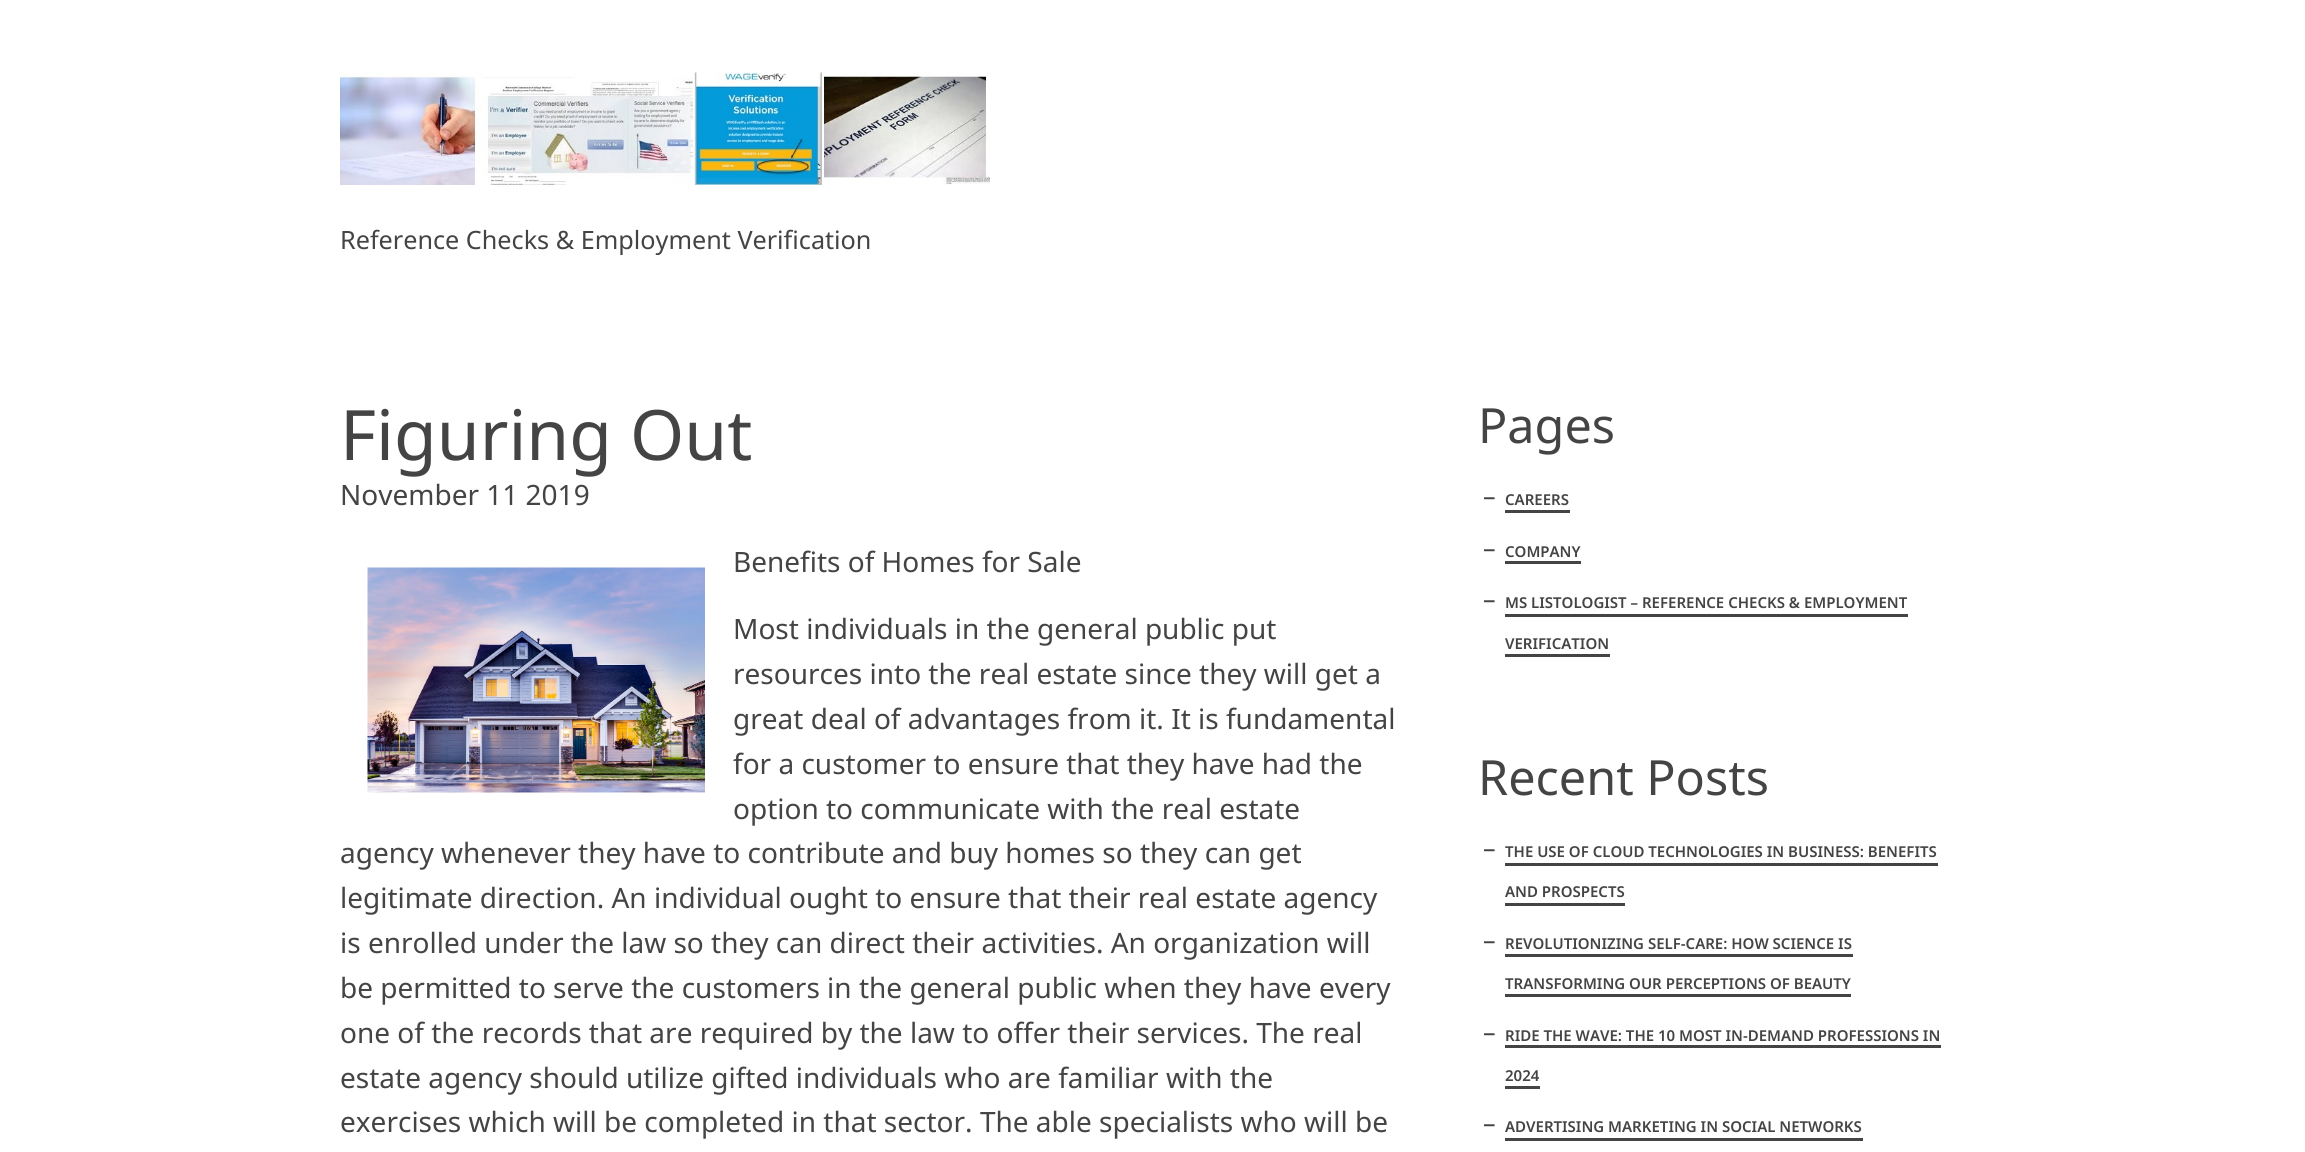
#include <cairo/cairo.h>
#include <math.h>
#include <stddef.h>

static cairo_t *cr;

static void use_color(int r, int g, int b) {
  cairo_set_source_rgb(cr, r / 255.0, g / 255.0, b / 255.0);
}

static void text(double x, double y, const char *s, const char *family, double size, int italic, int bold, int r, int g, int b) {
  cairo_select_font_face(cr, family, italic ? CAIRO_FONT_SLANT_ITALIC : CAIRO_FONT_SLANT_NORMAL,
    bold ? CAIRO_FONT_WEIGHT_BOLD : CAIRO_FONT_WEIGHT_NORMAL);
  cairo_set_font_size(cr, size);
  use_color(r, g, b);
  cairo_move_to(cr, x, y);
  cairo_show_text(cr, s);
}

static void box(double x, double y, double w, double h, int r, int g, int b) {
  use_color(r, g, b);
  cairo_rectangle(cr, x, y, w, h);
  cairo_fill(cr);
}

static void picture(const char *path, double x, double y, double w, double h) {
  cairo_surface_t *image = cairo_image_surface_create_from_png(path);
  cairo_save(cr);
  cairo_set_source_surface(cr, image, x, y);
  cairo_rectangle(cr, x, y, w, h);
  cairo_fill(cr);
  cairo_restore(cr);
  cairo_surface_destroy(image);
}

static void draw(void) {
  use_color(255, 255, 255);
  cairo_paint(cr);
  picture("img_01.png", 340, 72, 650, 113);
  picture("img_02.png", 367, 567, 338, 226);
  box(1505, 510, 65, 3, 68, 68, 68);
  box(1505, 561, 76, 3, 68, 68, 68);
  box(1505, 614, 403, 3, 68, 68, 68);
  box(1505, 654, 105, 3, 68, 68, 68);
  box(1505, 863, 433, 3, 68, 68, 68);
  box(1505, 903, 120, 3, 68, 68, 68);
  box(1505, 954, 348, 3, 68, 68, 68);
  box(1505, 994, 346, 3, 68, 68, 68);
  box(1505, 1045, 436, 3, 68, 68, 68);
  box(1505, 1086, 35, 3, 68, 68, 68);
  box(1505, 1138, 358, 3, 68, 68, 68);
  text(340, 249, "Reference Checks & Employment Verification", "Noto Sans", 25.2, 0, 0, 68, 68, 68);
  text(340, 460, "Figuring Out", "Noto Sans", 69.5, 0, 0, 68, 68, 68);
  text(340, 505, "November 11 2019", "Noto Sans", 28, 0, 0, 68, 68, 68);
  text(733, 572, "Benefits of Homes for Sale", "Noto Sans", 28, 0, 0, 68, 68, 68);
  text(733, 639, "Most individuals in the general public put", "Noto Sans", 28, 0, 0, 68, 68, 68);
  text(733, 684, "resources into the real estate since they will get a", "Noto Sans", 28, 0, 0, 68, 68, 68);
  text(733, 729, "great deal of advantages from it. It is fundamental", "Noto Sans", 28, 0, 0, 68, 68, 68);
  text(733, 774, "for a customer to ensure that they have had the", "Noto Sans", 28, 0, 0, 68, 68, 68);
  text(733, 819, "option to communicate with the real estate", "Noto Sans", 28, 0, 0, 68, 68, 68);
  text(340, 863, "agency whenever they have to contribute and buy homes so they can get", "Noto Sans", 28, 0, 0, 68, 68, 68);
  text(340, 908, "legitimate direction. An individual ought to ensure that their real estate agency", "Noto Sans", 28, 0, 0, 68, 68, 68);
  text(340, 953, "is enrolled under the law so they can direct their activities. An organization will", "Noto Sans", 28, 0, 0, 68, 68, 68);
  text(340, 998, "be permitted to serve the customers in the general public when they have every", "Noto Sans", 28, 0, 0, 68, 68, 68);
  text(340, 1043, "one of the records that are required by the law to offer their services. The real", "Noto Sans", 28, 0, 0, 68, 68, 68);
  text(340, 1088, "estate agency should utilize gifted individuals who are familiar with the", "Noto Sans", 28, 0, 0, 68, 68, 68);
  text(340, 1132, "exercises which will be completed in that sector. The able specialists who will be", "Noto Sans", 28, 0, 0, 68, 68, 68);
  text(1478, 443, "Pages", "Noto Sans", 48.5, 0, 0, 68, 68, 68);
  text(1483, 505, "–", "Noto Sans", 25.2, 0, 0, 68, 68, 68);
  text(1505, 505, "CAREERS", "Noto Sans SemiBold", 15, 0, 0, 68, 68, 68);
  text(1483, 557, "–", "Noto Sans", 25.2, 0, 0, 68, 68, 68);
  text(1505, 557, "COMPANY", "Noto Sans SemiBold", 15, 0, 0, 68, 68, 68);
  text(1483, 608, "–", "Noto Sans", 25.2, 0, 0, 68, 68, 68);
  text(1505, 608, "MS LISTOLOGIST – REFERENCE CHECKS & EMPLOYMENT", "Noto Sans SemiBold", 15, 0, 0, 68, 68, 68);
  text(1505, 649, "VERIFICATION", "Noto Sans SemiBold", 15, 0, 0, 68, 68, 68);
  text(1478, 795, "Recent Posts", "Noto Sans", 48.5, 0, 0, 68, 68, 68);
  text(1483, 857, "–", "Noto Sans", 25.2, 0, 0, 68, 68, 68);
  text(1505, 857, "THE USE OF CLOUD TECHNOLOGIES IN BUSINESS: BENEFITS", "Noto Sans SemiBold", 15, 0, 0, 68, 68, 68);
  text(1505, 897, "AND PROSPECTS", "Noto Sans SemiBold", 15, 0, 0, 68, 68, 68);
  text(1483, 949, "–", "Noto Sans", 25.2, 0, 0, 68, 68, 68);
  text(1505, 949, "REVOLUTIONIZING SELF-CARE: HOW SCIENCE IS", "Noto Sans SemiBold", 15, 0, 0, 68, 68, 68);
  text(1505, 989, "TRANSFORMING OUR PERCEPTIONS OF BEAUTY", "Noto Sans SemiBold", 15, 0, 0, 68, 68, 68);
  text(1483, 1041, "–", "Noto Sans", 25.2, 0, 0, 68, 68, 68);
  text(1505, 1041, "RIDE THE WAVE: THE 10 MOST IN-DEMAND PROFESSIONS IN", "Noto Sans SemiBold", 15, 0, 0, 68, 68, 68);
  text(1505, 1081, "2024", "Noto Sans SemiBold", 15, 0, 0, 68, 68, 68);
  text(1483, 1132, "–", "Noto Sans", 25.2, 0, 0, 68, 68, 68);
  text(1505, 1132, "ADVERTISING MARKETING IN SOCIAL NETWORKS", "Noto Sans SemiBold", 15, 0, 0, 68, 68, 68);
}

int main(void) {
  cairo_surface_t *surface = cairo_image_surface_create(CAIRO_FORMAT_RGB24, 2305, 1152);
  cr = cairo_create(surface);
  cairo_font_options_t *options = cairo_font_options_create();
  cairo_font_options_set_hint_metrics(options, CAIRO_HINT_METRICS_OFF);
  cairo_font_options_set_hint_style(options, CAIRO_HINT_STYLE_NONE);
  cairo_set_font_options(cr, options);
  cairo_set_miter_limit(cr, 4);
  draw();
  cairo_surface_write_to_png(surface, "out.png");
  cairo_font_options_destroy(options);
  cairo_destroy(cr);
  cairo_surface_destroy(surface);
  return 0;
}
